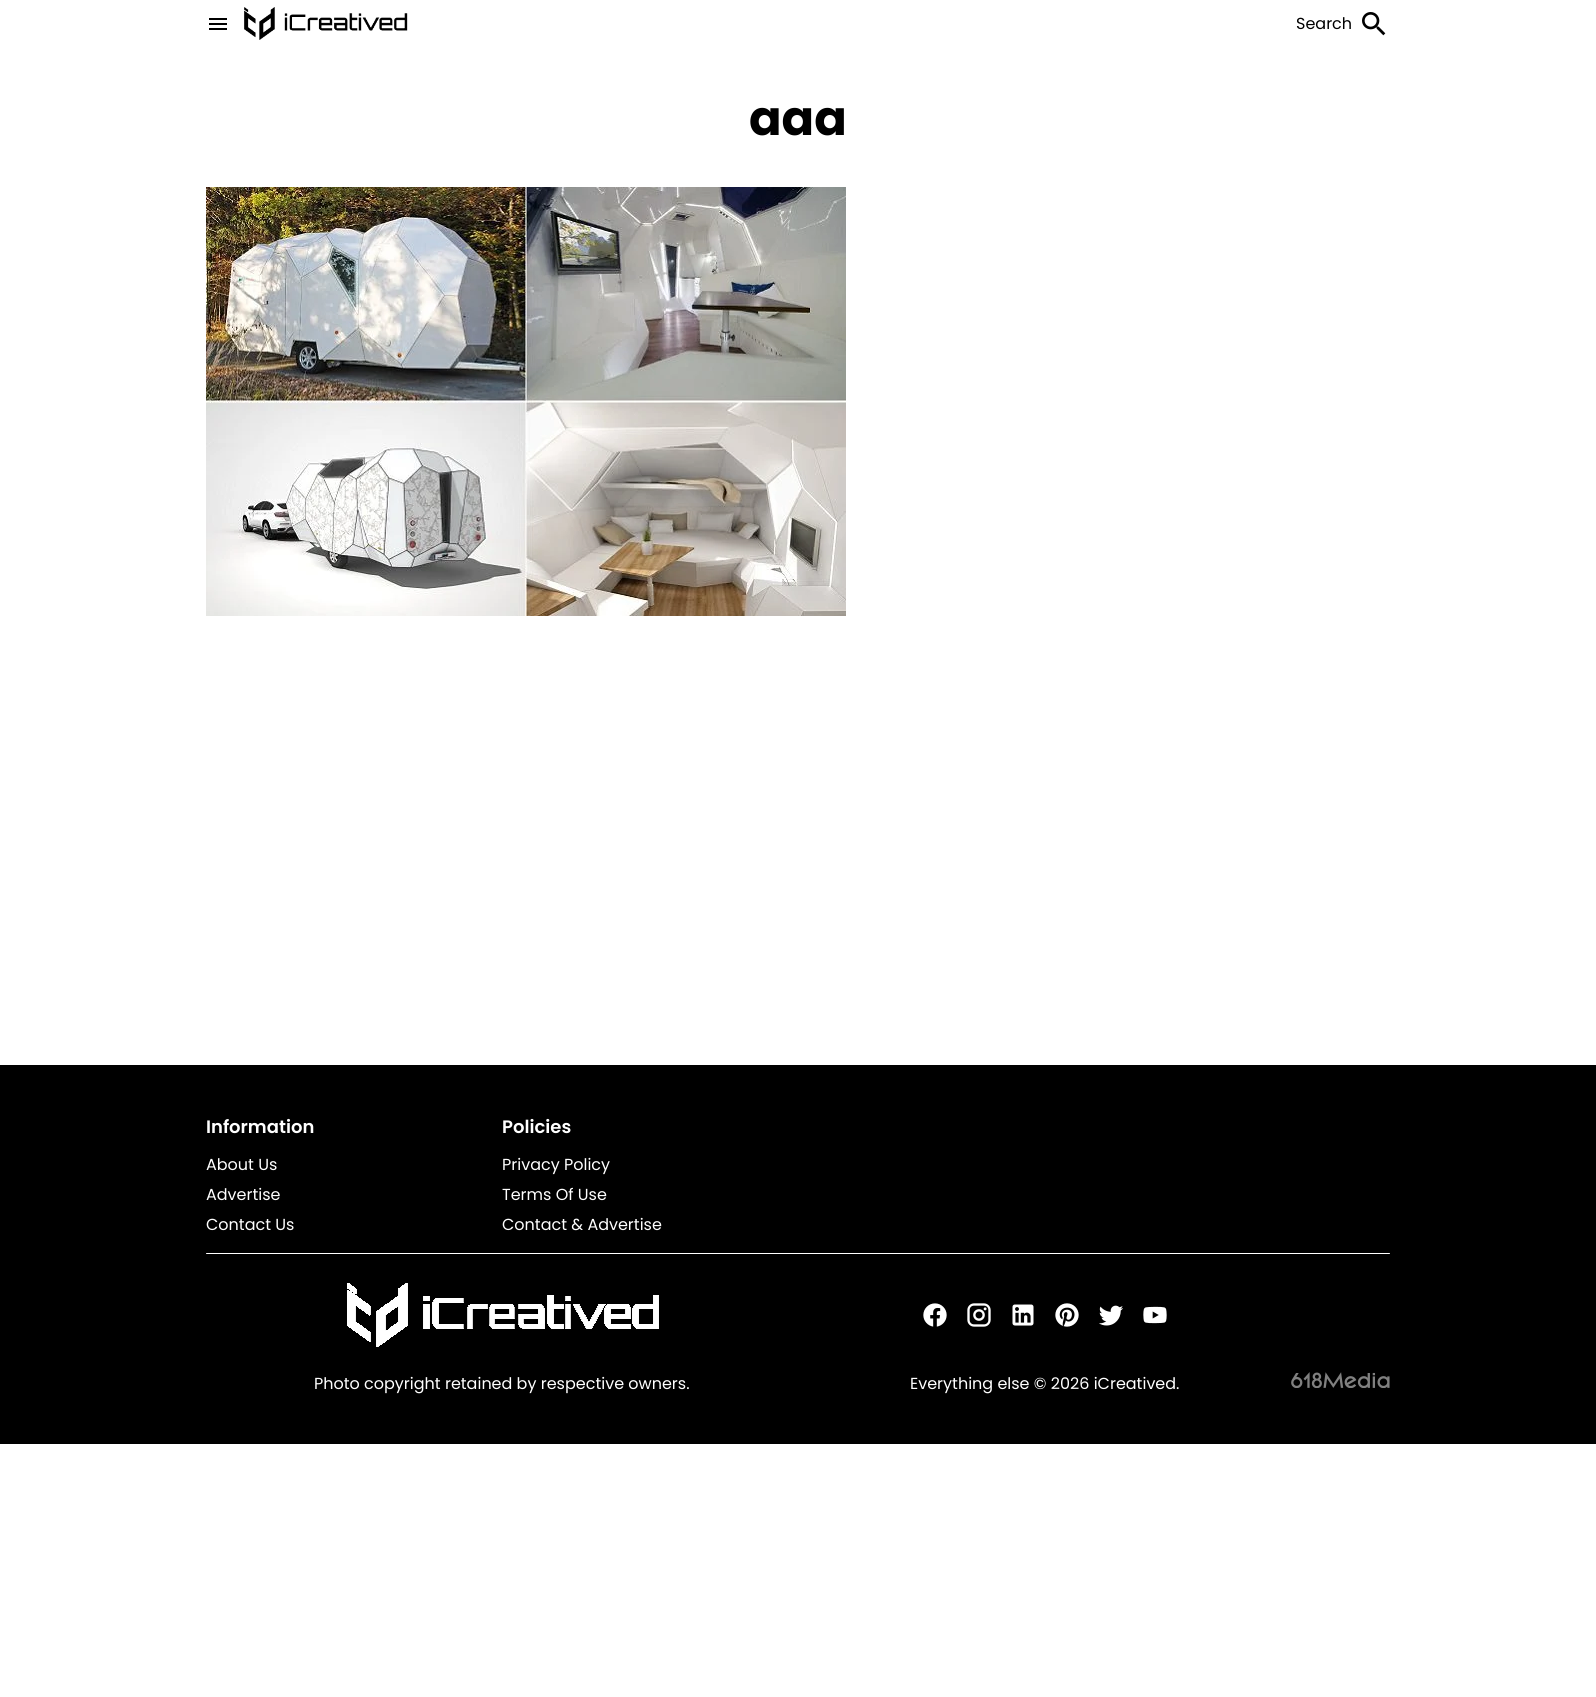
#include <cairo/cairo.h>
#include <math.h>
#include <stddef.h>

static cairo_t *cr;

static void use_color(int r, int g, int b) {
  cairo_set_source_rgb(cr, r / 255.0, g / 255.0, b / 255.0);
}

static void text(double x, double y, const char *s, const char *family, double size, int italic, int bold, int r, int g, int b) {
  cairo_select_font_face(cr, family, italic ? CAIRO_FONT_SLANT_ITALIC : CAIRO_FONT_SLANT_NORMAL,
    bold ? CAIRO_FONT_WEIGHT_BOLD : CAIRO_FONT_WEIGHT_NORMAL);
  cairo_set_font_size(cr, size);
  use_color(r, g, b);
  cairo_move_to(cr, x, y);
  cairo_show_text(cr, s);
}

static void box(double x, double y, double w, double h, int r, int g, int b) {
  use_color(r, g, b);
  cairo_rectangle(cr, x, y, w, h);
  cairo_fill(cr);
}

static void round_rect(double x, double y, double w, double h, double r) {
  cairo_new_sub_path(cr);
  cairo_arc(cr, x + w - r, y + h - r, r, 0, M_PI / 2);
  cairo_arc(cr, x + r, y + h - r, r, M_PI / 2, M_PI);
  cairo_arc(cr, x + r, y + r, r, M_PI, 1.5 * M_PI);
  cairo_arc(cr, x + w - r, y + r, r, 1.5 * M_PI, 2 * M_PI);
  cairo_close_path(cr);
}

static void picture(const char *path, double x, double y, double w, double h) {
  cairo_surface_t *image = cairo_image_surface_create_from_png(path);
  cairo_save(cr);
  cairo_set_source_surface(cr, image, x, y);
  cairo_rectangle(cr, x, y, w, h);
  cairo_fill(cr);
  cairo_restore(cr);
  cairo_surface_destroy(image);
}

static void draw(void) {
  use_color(255, 255, 255);
  cairo_paint(cr);
  picture("img_01.png", 209, 18, 18, 12);
  picture("img_02.png", 244, 7, 164, 33);
  picture("img_03.png", 1362, 12, 24, 24);
  picture("img_04.png", 206, 187, 640, 429);
  box(0, 1065, 1596, 379, 0, 0, 0);
  use_color(255, 255, 255);
  round_rect(206, 1253, 1184, 1, 0.5);
  cairo_fill(cr);
  picture("img_05.png", 347, 1283, 312, 64);
  picture("img_06.png", 923, 1303, 24, 24);
  picture("img_07.png", 967, 1303, 24, 24);
  picture("img_08.png", 1012, 1304, 22, 22);
  picture("img_09.png", 1055, 1303, 24, 24);
  picture("img_10.png", 1099, 1305, 24, 21);
  picture("img_11.png", 1143, 1306, 24, 18);
  picture("img_12.png", 1291, 1372, 99, 16);
  text(1296, 29, "Search", "Poppins", 16, 0, 0, 0, 0, 0);
  text(749, 135, "aaa", "Poppins", 48, 0, 1, 0, 0, 0);
  text(206, 1133, "Information", "Poppins SemiBold", 18, 0, 0, 255, 255, 255);
  text(206, 1170, "About Us", "Poppins", 16, 0, 0, 255, 255, 255);
  text(206, 1200, "Advertise", "Poppins", 16, 0, 0, 255, 255, 255);
  text(206, 1230, "Contact Us", "Poppins", 16, 0, 0, 255, 255, 255);
  text(502, 1133, "Policies", "Poppins SemiBold", 18, 0, 0, 255, 255, 255);
  text(502, 1170, "Privacy Policy", "Poppins", 16, 0, 0, 255, 255, 255);
  text(502, 1200, "Terms Of Use", "Poppins", 16, 0, 0, 255, 255, 255);
  text(502, 1230, "Contact & Advertise", "Poppins", 16, 0, 0, 255, 255, 255);
  text(314, 1389, "Photo copyright retained by respective owners.", "Poppins", 16, 0, 0, 255, 255, 255);
  text(910, 1389, "Everything else © 2026 iCreatived.", "Poppins", 16, 0, 0, 255, 255, 255);
}

int main(void) {
  cairo_surface_t *surface = cairo_image_surface_create(CAIRO_FORMAT_RGB24, 1596, 1697);
  cr = cairo_create(surface);
  cairo_font_options_t *options = cairo_font_options_create();
  cairo_font_options_set_hint_metrics(options, CAIRO_HINT_METRICS_OFF);
  cairo_font_options_set_hint_style(options, CAIRO_HINT_STYLE_NONE);
  cairo_set_font_options(cr, options);
  cairo_set_miter_limit(cr, 4);
  draw();
  cairo_surface_write_to_png(surface, "out.png");
  cairo_font_options_destroy(options);
  cairo_destroy(cr);
  cairo_surface_destroy(surface);
  return 0;
}
